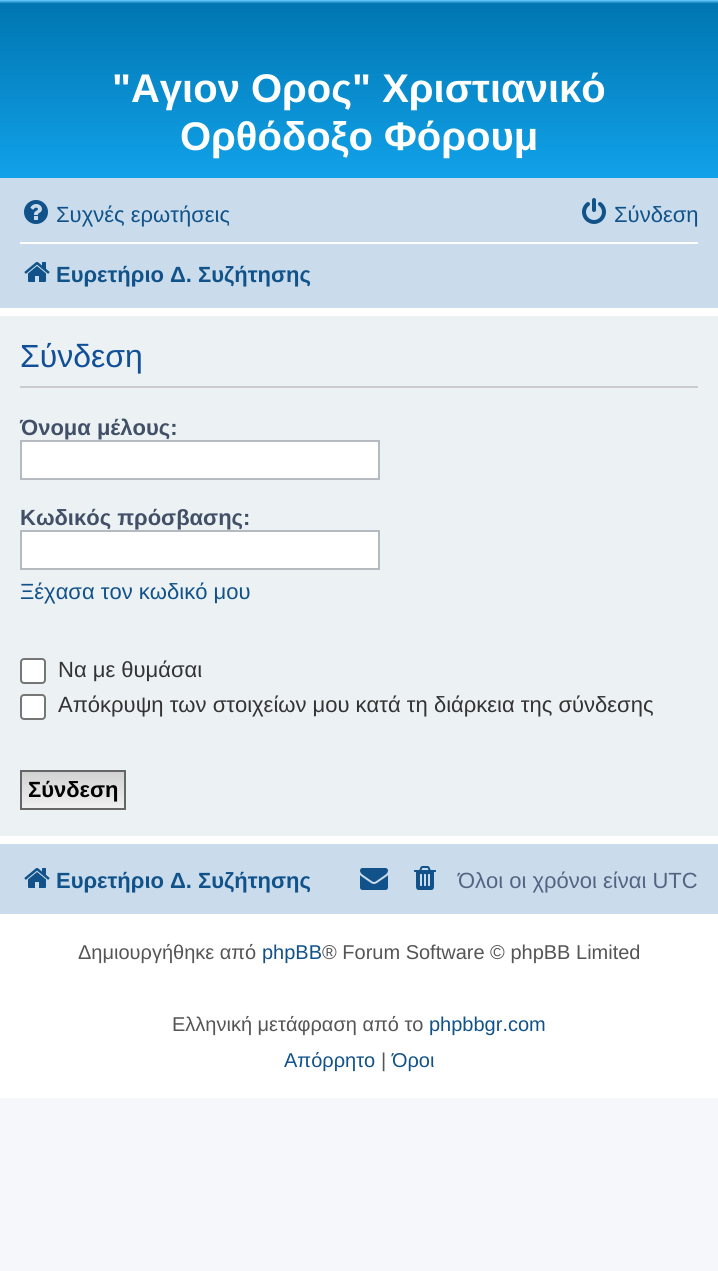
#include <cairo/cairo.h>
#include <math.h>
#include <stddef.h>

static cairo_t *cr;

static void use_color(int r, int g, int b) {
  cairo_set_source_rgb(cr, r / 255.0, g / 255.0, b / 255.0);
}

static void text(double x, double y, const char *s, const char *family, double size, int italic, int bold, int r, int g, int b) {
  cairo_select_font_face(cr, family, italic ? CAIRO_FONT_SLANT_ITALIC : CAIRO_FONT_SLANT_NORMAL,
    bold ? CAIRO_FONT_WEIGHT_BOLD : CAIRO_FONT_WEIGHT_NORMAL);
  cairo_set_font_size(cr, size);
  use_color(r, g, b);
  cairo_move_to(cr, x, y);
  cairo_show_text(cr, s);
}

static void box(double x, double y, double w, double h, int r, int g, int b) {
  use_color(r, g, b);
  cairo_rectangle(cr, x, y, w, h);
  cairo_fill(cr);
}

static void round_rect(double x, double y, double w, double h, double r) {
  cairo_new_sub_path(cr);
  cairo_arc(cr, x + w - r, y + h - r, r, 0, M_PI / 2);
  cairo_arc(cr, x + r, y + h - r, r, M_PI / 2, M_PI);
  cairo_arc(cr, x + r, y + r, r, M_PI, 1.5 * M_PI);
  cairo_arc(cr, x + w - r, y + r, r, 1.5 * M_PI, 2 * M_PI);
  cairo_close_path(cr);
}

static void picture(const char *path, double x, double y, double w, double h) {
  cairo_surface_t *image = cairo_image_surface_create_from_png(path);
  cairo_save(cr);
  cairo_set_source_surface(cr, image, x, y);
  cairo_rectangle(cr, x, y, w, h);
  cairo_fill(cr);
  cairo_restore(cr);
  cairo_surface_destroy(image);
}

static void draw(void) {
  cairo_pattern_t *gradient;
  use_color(245, 247, 250);
  cairo_paint(cr);
  box(0, 308, 718, 790, 255, 255, 255);
  gradient = cairo_pattern_create_linear(359, 0, 359, 184);
  cairo_pattern_add_color_stop_rgba(gradient, 0, 0.416, 0.808, 1, 1);
  cairo_pattern_add_color_stop_rgba(gradient, 0.02, 0, 0.463, 0.694, 1);
  cairo_pattern_add_color_stop_rgba(gradient, 1, 0.071, 0.639, 0.922, 1);
  cairo_set_source(cr, gradient);
  cairo_pattern_destroy(gradient);
  cairo_rectangle(cr, 0, 0, 718, 178);
  cairo_fill(cr);
  box(0, 178, 718, 130, 202, 220, 235);
  picture("img_01.png", 24, 200, 24, 24);
  picture("img_02.png", 582, 198, 24, 26);
  box(20, 242, 678, 2, 255, 255, 255);
  picture("img_03.png", 24, 262, 26, 20);
  box(0, 316, 718, 520, 236, 241, 243);
  box(20, 386, 678, 2, 204, 204, 204);
  use_color(255, 255, 255);
  cairo_rectangle(cr, 21, 441, 358, 38);
  cairo_fill_preserve(cr);
  use_color(180, 186, 192);
  cairo_stroke(cr);
  use_color(255, 255, 255);
  cairo_rectangle(cr, 21, 531, 358, 38);
  cairo_fill_preserve(cr);
  use_color(180, 186, 192);
  cairo_stroke(cr);
  use_color(255, 255, 255);
  round_rect(21, 659, 24, 24, 3);
  cairo_fill_preserve(cr);
  use_color(118, 118, 118);
  cairo_stroke(cr);
  use_color(255, 255, 255);
  round_rect(21, 695, 24, 24, 3);
  cairo_fill_preserve(cr);
  use_color(118, 118, 118);
  cairo_stroke(cr);
  gradient = cairo_pattern_create_linear(73, 772, 73, 808);
  cairo_pattern_add_color_stop_rgba(gradient, 0, 0.824, 0.824, 0.824, 1);
  cairo_pattern_add_color_stop_rgba(gradient, 1, 0.937, 0.937, 0.937, 1);
  cairo_set_source(cr, gradient);
  cairo_pattern_destroy(gradient);
  cairo_rectangle(cr, 22, 772, 102, 36);
  cairo_fill(cr);
  cairo_rectangle(cr, 21, 771, 104, 38);
  use_color(102, 102, 102);
  cairo_stroke(cr);
  box(0, 844, 718, 70, 202, 220, 235);
  picture("img_03.png", 24, 868, 26, 20);
  picture("img_04.png", 360, 868, 28, 22);
  picture("img_05.png", 414, 866, 22, 24);
  text(112, 102, "\"Αγιον Ορος\" Χριστιανικό", "Liberation Sans", 40, 0, 1, 255, 255, 255);
  text(180, 150, "Ορθόδοξο Φόρουμ", "Liberation Sans", 40, 0, 1, 255, 255, 255);
  text(56, 222, "Συχνές ερωτήσεις", "Liberation Sans", 22, 0, 0, 16, 82, 137);
  text(614, 222, "Σύνδεση", "Liberation Sans", 22, 0, 0, 16, 82, 137);
  text(56, 282, "Ευρετήριο Δ. Συζήτησης", "Liberation Sans", 22, 0, 1, 16, 82, 137);
  text(20, 367, "Σύνδεση", "Liberation Sans", 32, 0, 0, 17, 80, 152);
  text(20, 435, "Όνομα μέλους:", "Liberation Sans", 22, 0, 1, 66, 80, 103);
  text(20, 525, "Κωδικός πρόσβασης:", "Liberation Sans", 22, 0, 1, 66, 80, 103);
  text(20, 599, "Ξέχασα τον κωδικό μου", "Liberation Sans", 22, 0, 0, 16, 82, 137);
  text(58, 677, "Να με θυμάσαι", "Liberation Sans", 22, 0, 0, 51, 51, 51);
  text(58, 712, "Απόκρυψη των στοιχείων μου κατά τη διάρκεια της σύνδεσης", "Liberation Sans", 22, 0, 0, 51, 51, 51);
  text(28, 797, "Σύνδεση", "Liberation Sans", 22, 0, 1, 0, 0, 0);
  text(56, 888, "Ευρετήριο Δ. Συζήτησης", "Liberation Sans", 22, 0, 1, 16, 82, 137);
  text(458, 888, "Όλοι οι χρόνοι είναι UTC", "Liberation Sans", 22, 0, 0, 83, 100, 130);
  text(78, 959, "Δημιουργήθηκε από", "Liberation Sans", 20, 0, 0, 85, 85, 85);
  text(262, 959, "phpBB", "Liberation Sans", 20, 0, 0, 16, 82, 137);
  text(322, 959, "® Forum Software © phpBB Limited", "Liberation Sans", 20, 0, 0, 85, 85, 85);
  text(172, 1031, "Ελληνική μετάφραση από το", "Liberation Sans", 20, 0, 0, 85, 85, 85);
  text(429, 1031, "phpbbgr.com", "Liberation Sans", 20, 0, 0, 16, 82, 137);
  text(284, 1067, "Απόρρητο", "Liberation Sans", 20, 0, 0, 16, 82, 137);
  text(381, 1067, "|", "Liberation Sans", 20, 0, 0, 85, 85, 85);
  text(392, 1067, "Όροι", "Liberation Sans", 20, 0, 0, 16, 82, 137);
}

int main(void) {
  cairo_surface_t *surface = cairo_image_surface_create(CAIRO_FORMAT_RGB24, 718, 1271);
  cr = cairo_create(surface);
  cairo_font_options_t *options = cairo_font_options_create();
  cairo_font_options_set_hint_metrics(options, CAIRO_HINT_METRICS_OFF);
  cairo_font_options_set_hint_style(options, CAIRO_HINT_STYLE_NONE);
  cairo_set_font_options(cr, options);
  cairo_set_miter_limit(cr, 4);
  draw();
  cairo_surface_write_to_png(surface, "out.png");
  cairo_font_options_destroy(options);
  cairo_destroy(cr);
  cairo_surface_destroy(surface);
  return 0;
}
